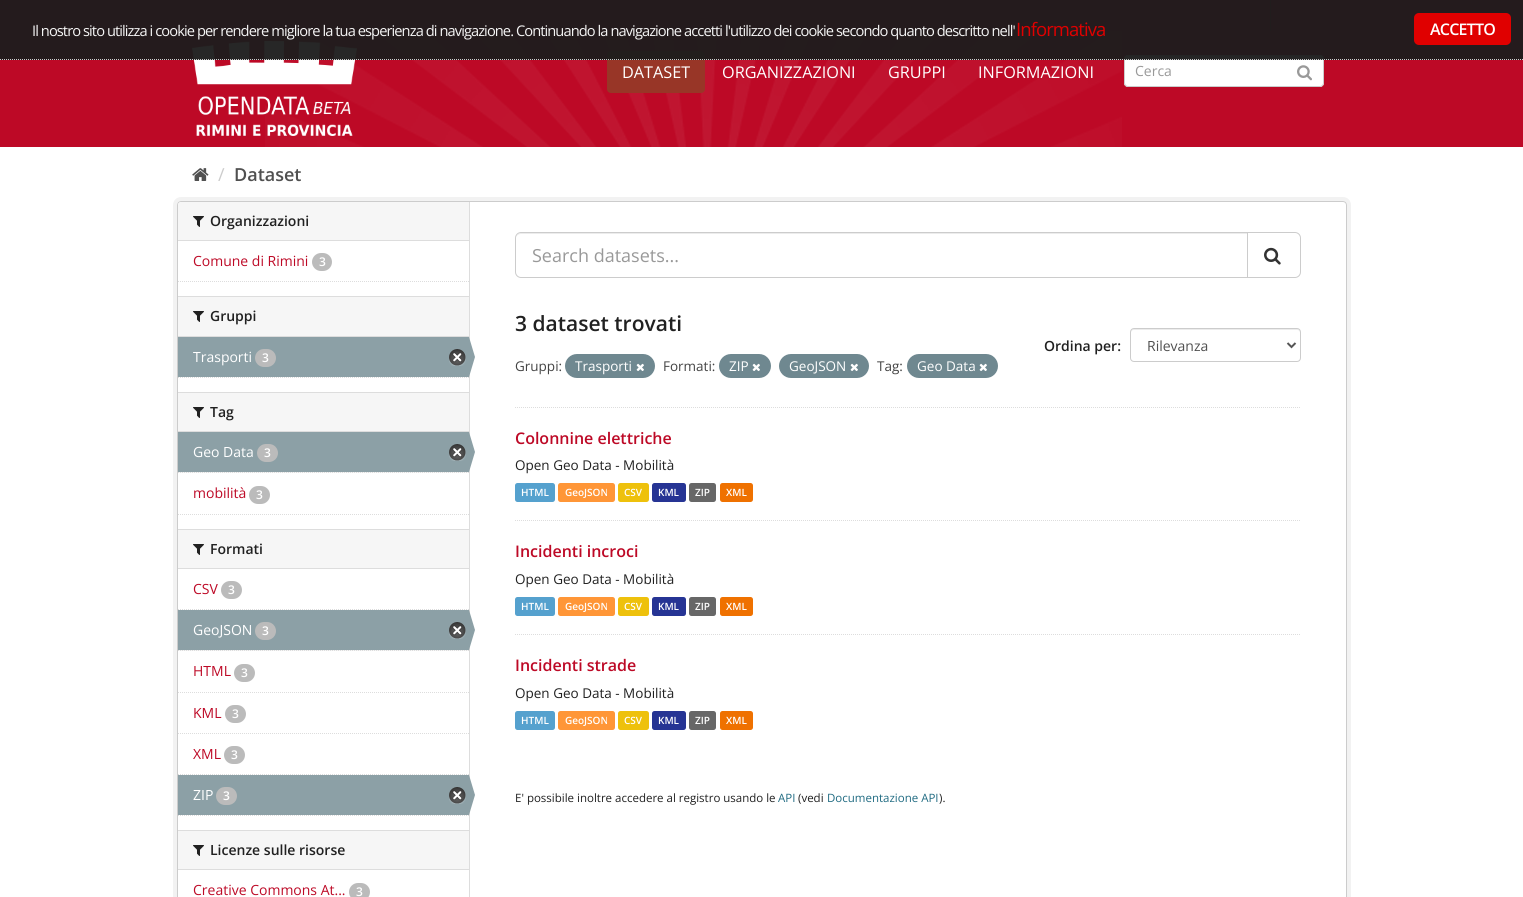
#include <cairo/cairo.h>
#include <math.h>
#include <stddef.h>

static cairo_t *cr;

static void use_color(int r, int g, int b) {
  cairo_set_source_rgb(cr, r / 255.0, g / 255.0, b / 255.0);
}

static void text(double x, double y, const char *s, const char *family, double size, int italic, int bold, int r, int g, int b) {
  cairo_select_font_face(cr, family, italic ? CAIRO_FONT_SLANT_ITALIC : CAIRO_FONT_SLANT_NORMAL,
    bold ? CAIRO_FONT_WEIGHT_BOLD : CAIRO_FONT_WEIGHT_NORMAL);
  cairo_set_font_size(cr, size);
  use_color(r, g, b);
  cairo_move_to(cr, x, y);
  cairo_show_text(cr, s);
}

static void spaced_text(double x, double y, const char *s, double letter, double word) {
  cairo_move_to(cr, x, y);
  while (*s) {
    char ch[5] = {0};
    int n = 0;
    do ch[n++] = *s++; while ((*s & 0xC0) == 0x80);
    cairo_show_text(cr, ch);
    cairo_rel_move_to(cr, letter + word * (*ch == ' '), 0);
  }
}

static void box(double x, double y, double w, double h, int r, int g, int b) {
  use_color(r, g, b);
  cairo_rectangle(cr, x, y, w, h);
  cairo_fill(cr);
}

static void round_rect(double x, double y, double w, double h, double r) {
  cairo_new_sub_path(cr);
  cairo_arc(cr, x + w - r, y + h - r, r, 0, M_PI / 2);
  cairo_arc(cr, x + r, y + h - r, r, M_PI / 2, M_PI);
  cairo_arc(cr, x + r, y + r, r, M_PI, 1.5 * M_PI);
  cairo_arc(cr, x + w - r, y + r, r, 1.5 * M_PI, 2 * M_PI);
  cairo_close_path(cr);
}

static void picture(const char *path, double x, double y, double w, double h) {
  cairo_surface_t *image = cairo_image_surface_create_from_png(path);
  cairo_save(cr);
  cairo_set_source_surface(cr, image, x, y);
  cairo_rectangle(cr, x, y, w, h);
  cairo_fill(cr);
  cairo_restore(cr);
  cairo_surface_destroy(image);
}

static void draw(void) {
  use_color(255, 255, 255);
  cairo_paint(cr);
  box(0, 0, 1523, 147, 189, 9, 38);
  box(1270, 0, 1, 31, 132, 47, 34);
  picture("img_01.png", 265, 31, 857, 116);
  picture("img_02.png", 192, 41, 165, 95);
  use_color(152, 54, 39);
  round_rect(607, 51, 98, 42, 4);
  cairo_fill(cr);
  use_color(255, 255, 255);
  round_rect(1124, 55, 200, 32, 4);
  cairo_fill(cr);
  use_color(236, 236, 236);
  cairo_new_path(cr);
  cairo_move_to(cr, 1128, 57);
  cairo_line_to(cr, 1320, 57);
  cairo_curve_to(cr, 1322, 57, 1323, 58, 1323, 60);
  cairo_curve_to(cr, 1323, 58, 1322, 56, 1320, 56);
  cairo_line_to(cr, 1128, 56);
  cairo_curve_to(cr, 1126, 56, 1125, 58, 1125, 60);
  cairo_curve_to(cr, 1125, 58, 1126, 57, 1128, 57);
  cairo_close_path(cr);
  cairo_fill(cr);
  round_rect(1124.5, 55.5, 199, 31, 3.5);
  use_color(204, 204, 204);
  cairo_set_line_width(cr, 1);
  cairo_stroke(cr);
  cairo_set_source_rgba(cr, 0.114, 0.114, 0.114, 0.95);
  cairo_rectangle(cr, 0, 0, 1523, 60);
  cairo_fill(cr);
  cairo_new_path(cr);
  cairo_move_to(cr, 0, 59.5);
  cairo_line_to(cr, 1523, 59.5);
  use_color(204, 204, 204);
  cairo_set_dash(cr, (double[]){1, 1}, 2, 0);
  cairo_stroke(cr);
  use_color(224, 0, 0);
  round_rect(1414, 13, 97, 32, 5);
  cairo_fill(cr);
  picture("img_03.png", 1297, 65, 15, 16);
  picture("img_04.png", 192, 168, 17, 13);
  round_rect(175, 199, 1174, 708, 6);
  use_color(242, 242, 242);
  cairo_set_line_width(cr, 4);
  cairo_set_dash(cr, NULL, 0, 0);
  cairo_stroke(cr);
  use_color(255, 255, 255);
  round_rect(177.5, 201.5, 1169, 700, 3.5);
  cairo_fill_preserve(cr);
  use_color(204, 204, 204);
  cairo_set_line_width(cr, 1);
  cairo_stroke(cr);
  use_color(246, 246, 246);
  cairo_new_path(cr);
  cairo_move_to(cr, 181, 202);
  cairo_line_to(cr, 469, 202);
  cairo_line_to(cr, 469, 241);
  cairo_line_to(cr, 178, 241);
  cairo_line_to(cr, 178, 205);
  cairo_curve_to(cr, 178, 203.5, 179.5, 202, 181, 202);
  cairo_close_path(cr);
  cairo_fill(cr);
  box(178, 240, 291, 1, 221, 221, 221);
  picture("img_05.png", 193, 216, 11, 11);
  use_color(187, 187, 187);
  round_rect(312, 253, 20, 18, 9);
  cairo_fill(cr);
  cairo_new_path(cr);
  cairo_move_to(cr, 178, 281.5);
  cairo_line_to(cr, 469, 281.5);
  use_color(221, 221, 221);
  cairo_set_dash(cr, (double[]){1, 1}, 2, 0);
  cairo_stroke(cr);
  box(178, 297, 291, 39, 246, 246, 246);
  box(178, 296, 291, 1, 221, 221, 221);
  box(178, 336, 291, 1, 221, 221, 221);
  picture("img_05.png", 193, 311, 11, 11);
  box(178, 337, 291, 40, 140, 160, 166);
  use_color(187, 187, 187);
  round_rect(255, 349, 21, 18, 9);
  cairo_fill(cr);
  picture("img_06.png", 449, 349, 17, 17);
  box(469, 202, 1, 695, 221, 221, 221);
  use_color(140, 160, 166);
  cairo_new_path(cr);
  cairo_move_to(cr, 469, 377);
  cairo_line_to(cr, 469, 337);
  cairo_line_to(cr, 475, 357);
  cairo_close_path(cr);
  cairo_fill(cr);
  cairo_new_path(cr);
  cairo_move_to(cr, 178, 377.5);
  cairo_line_to(cr, 469, 377.5);
  use_color(221, 221, 221);
  cairo_stroke(cr);
  box(178, 393, 291, 38, 246, 246, 246);
  box(178, 392, 291, 1, 221, 221, 221);
  box(178, 431, 291, 1, 221, 221, 221);
  picture("img_05.png", 193, 407, 11, 11);
  box(179, 472, 289, 1, 246, 246, 246);
  cairo_new_path(cr);
  cairo_move_to(cr, 178, 472.5);
  cairo_line_to(cr, 469, 472.5);
  use_color(221, 221, 221);
  cairo_stroke(cr);
  box(178, 432, 291, 40, 140, 160, 166);
  use_color(187, 187, 187);
  round_rect(257, 444, 21, 18, 9);
  cairo_fill(cr);
  picture("img_06.png", 449, 444, 17, 17);
  use_color(140, 160, 166);
  cairo_new_path(cr);
  cairo_move_to(cr, 469, 472);
  cairo_line_to(cr, 469, 432);
  cairo_line_to(cr, 475, 452);
  cairo_close_path(cr);
  cairo_fill(cr);
  use_color(187, 187, 187);
  round_rect(249, 486, 21, 18, 9);
  cairo_fill(cr);
  cairo_new_path(cr);
  cairo_move_to(cr, 178, 514.5);
  cairo_line_to(cr, 469, 514.5);
  use_color(221, 221, 221);
  cairo_stroke(cr);
  box(178, 530, 291, 38, 246, 246, 246);
  box(178, 529, 291, 1, 221, 221, 221);
  box(178, 568, 291, 1, 221, 221, 221);
  picture("img_05.png", 193, 544, 11, 11);
  cairo_new_path(cr);
  cairo_move_to(cr, 178, 609.5);
  cairo_line_to(cr, 469, 609.5);
  cairo_stroke(cr);
  use_color(187, 187, 187);
  round_rect(221, 581, 21, 18, 9);
  cairo_fill(cr);
  box(179, 650, 289, 1, 246, 246, 246);
  cairo_new_path(cr);
  cairo_move_to(cr, 178, 650.5);
  cairo_line_to(cr, 469, 650.5);
  use_color(221, 221, 221);
  cairo_stroke(cr);
  box(178, 610, 291, 40, 140, 160, 166);
  use_color(187, 187, 187);
  round_rect(255, 622, 21, 18, 9);
  cairo_fill(cr);
  picture("img_06.png", 449, 622, 17, 17);
  use_color(140, 160, 166);
  cairo_new_path(cr);
  cairo_move_to(cr, 469, 650);
  cairo_line_to(cr, 469, 610);
  cairo_line_to(cr, 475, 630);
  cairo_close_path(cr);
  cairo_fill(cr);
  cairo_new_path(cr);
  cairo_move_to(cr, 178, 692.5);
  cairo_line_to(cr, 469, 692.5);
  use_color(221, 221, 221);
  cairo_stroke(cr);
  use_color(187, 187, 187);
  round_rect(234, 664, 21, 18, 9);
  cairo_fill(cr);
  cairo_new_path(cr);
  cairo_move_to(cr, 178, 733.5);
  cairo_line_to(cr, 469, 733.5);
  use_color(221, 221, 221);
  cairo_stroke(cr);
  use_color(187, 187, 187);
  round_rect(225, 705, 21, 18, 9);
  cairo_fill(cr);
  cairo_new_path(cr);
  cairo_move_to(cr, 178, 774.5);
  cairo_line_to(cr, 469, 774.5);
  use_color(221, 221, 221);
  cairo_stroke(cr);
  use_color(187, 187, 187);
  round_rect(224, 746, 21, 18, 9);
  cairo_fill(cr);
  box(178, 775, 291, 40, 140, 160, 166);
  use_color(187, 187, 187);
  round_rect(216, 787, 21, 18, 9);
  cairo_fill(cr);
  picture("img_06.png", 449, 787, 17, 17);
  use_color(140, 160, 166);
  cairo_new_path(cr);
  cairo_move_to(cr, 469, 815);
  cairo_line_to(cr, 469, 775);
  cairo_line_to(cr, 475, 795);
  cairo_close_path(cr);
  cairo_fill(cr);
  cairo_new_path(cr);
  cairo_move_to(cr, 178, 815.5);
  cairo_line_to(cr, 469, 815.5);
  use_color(221, 221, 221);
  cairo_stroke(cr);
  box(178, 831, 291, 38, 246, 246, 246);
  box(178, 830, 291, 1, 221, 221, 221);
  box(178, 869, 291, 1, 221, 221, 221);
  picture("img_05.png", 193, 845, 11, 11);
  use_color(187, 187, 187);
  round_rect(349, 883, 21, 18, 9);
  cairo_fill(cr);
  cairo_new_path(cr);
  cairo_move_to(cr, 515, 407.5);
  cairo_line_to(cr, 1301, 407.5);
  use_color(221, 221, 221);
  cairo_stroke(cr);
  use_color(236, 236, 236);
  cairo_new_path(cr);
  cairo_move_to(cr, 521, 234);
  cairo_line_to(cr, 1247, 234);
  cairo_line_to(cr, 1247, 233);
  cairo_line_to(cr, 521, 233);
  cairo_curve_to(cr, 518, 233, 516, 236, 516, 239);
  cairo_curve_to(cr, 516, 236, 518, 234, 521, 234);
  cairo_close_path(cr);
  cairo_fill(cr);
  cairo_new_path(cr);
  cairo_move_to(cr, 521, 232.5);
  cairo_line_to(cr, 1247.5, 232.5);
  cairo_line_to(cr, 1247.5, 277.5);
  cairo_line_to(cr, 521, 277.5);
  cairo_curve_to(cr, 518, 277.5, 515.5, 275, 515.5, 272);
  cairo_line_to(cr, 515.5, 238);
  cairo_curve_to(cr, 515.5, 235, 518, 232.5, 521, 232.5);
  cairo_close_path(cr);
  use_color(204, 204, 204);
  cairo_set_dash(cr, NULL, 0, 0);
  cairo_stroke(cr);
  use_color(255, 255, 255);
  cairo_new_path(cr);
  cairo_move_to(cr, 1247.5, 232.5);
  cairo_line_to(cr, 1295, 232.5);
  cairo_curve_to(cr, 1298, 232.5, 1300.5, 235, 1300.5, 238);
  cairo_line_to(cr, 1300.5, 272);
  cairo_curve_to(cr, 1300.5, 275, 1298, 277.5, 1295, 277.5);
  cairo_line_to(cr, 1247.5, 277.5);
  cairo_close_path(cr);
  cairo_fill_preserve(cr);
  use_color(204, 204, 204);
  cairo_stroke(cr);
  picture("img_07.png", 1264, 247, 17, 18);
  use_color(236, 236, 236);
  cairo_new_path(cr);
  cairo_move_to(cr, 1134, 330);
  cairo_line_to(cr, 1297, 330);
  cairo_curve_to(cr, 1299, 330, 1300, 331, 1300, 333);
  cairo_line_to(cr, 1300, 332);
  cairo_curve_to(cr, 1300, 330, 1299, 329, 1297, 329);
  cairo_line_to(cr, 1134, 329);
  cairo_curve_to(cr, 1132, 329, 1131, 330, 1131, 332);
  cairo_line_to(cr, 1131, 333);
  cairo_curve_to(cr, 1131, 331, 1132, 330, 1134, 330);
  cairo_close_path(cr);
  cairo_fill(cr);
  round_rect(1130.5, 328.5, 170, 33, 3.5);
  use_color(204, 204, 204);
  cairo_stroke(cr);
  cairo_new_path(cr);
  cairo_move_to(cr, 1287.5, 343);
  cairo_line_to(cr, 1291.5, 347);
  cairo_line_to(cr, 1295.5, 343);
  use_color(85, 85, 85);
  cairo_set_line_width(cr, 2);
  cairo_stroke(cr);
  use_color(111, 136, 144);
  round_rect(565, 354, 90, 24, 12);
  cairo_fill(cr);
  picture("img_08.png", 636, 363, 8, 8);
  round_rect(719, 354, 52, 24, 12);
  cairo_fill(cr);
  picture("img_08.png", 752, 363, 8, 8);
  round_rect(779, 354, 90, 24, 12);
  cairo_fill(cr);
  picture("img_08.png", 850, 363, 8, 8);
  round_rect(907, 354, 91, 24, 12);
  cairo_fill(cr);
  picture("img_08.png", 979, 363, 8, 8);
  cairo_new_path(cr);
  cairo_move_to(cr, 515, 520.5);
  cairo_line_to(cr, 1301, 520.5);
  use_color(221, 221, 221);
  cairo_set_line_width(cr, 1);
  cairo_set_dash(cr, (double[]){1, 1}, 2, 0);
  cairo_stroke(cr);
  use_color(85, 161, 206);
  round_rect(515, 483, 40, 19, 2.5);
  cairo_fill(cr);
  use_color(255, 150, 55);
  round_rect(558, 483, 57, 19, 2.5);
  cairo_fill(cr);
  use_color(238, 193, 12);
  round_rect(618, 483, 31, 19, 2.5);
  cairo_fill(cr);
  use_color(38, 52, 148);
  round_rect(652, 483, 34, 19, 2.5);
  cairo_fill(cr);
  use_color(103, 103, 103);
  round_rect(689, 483, 27, 19, 2.5);
  cairo_fill(cr);
  use_color(239, 113, 0);
  round_rect(720, 483, 33, 19, 2.5);
  cairo_fill(cr);
  cairo_new_path(cr);
  cairo_move_to(cr, 515, 634.5);
  cairo_line_to(cr, 1301, 634.5);
  use_color(221, 221, 221);
  cairo_stroke(cr);
  use_color(85, 161, 206);
  round_rect(515, 597, 40, 19, 2.5);
  cairo_fill(cr);
  use_color(255, 150, 55);
  round_rect(558, 597, 57, 19, 2.5);
  cairo_fill(cr);
  use_color(238, 193, 12);
  round_rect(618, 597, 31, 19, 2.5);
  cairo_fill(cr);
  use_color(38, 52, 148);
  round_rect(652, 597, 34, 19, 2.5);
  cairo_fill(cr);
  use_color(103, 103, 103);
  round_rect(689, 597, 27, 19, 2.5);
  cairo_fill(cr);
  use_color(239, 113, 0);
  round_rect(720, 597, 33, 19, 2.5);
  cairo_fill(cr);
  use_color(85, 161, 206);
  round_rect(515, 711, 40, 19, 2.5);
  cairo_fill(cr);
  use_color(255, 150, 55);
  round_rect(558, 711, 57, 19, 2.5);
  cairo_fill(cr);
  use_color(238, 193, 12);
  round_rect(618, 711, 31, 19, 2.5);
  cairo_fill(cr);
  use_color(38, 52, 148);
  round_rect(652, 711, 34, 19, 2.5);
  cairo_fill(cr);
  use_color(103, 103, 103);
  round_rect(689, 711, 27, 19, 2.5);
  cairo_fill(cr);
  use_color(239, 113, 0);
  round_rect(720, 711, 33, 19, 2.5);
  cairo_fill(cr);
  cairo_select_font_face(cr, "Open Sans", CAIRO_FONT_SLANT_NORMAL, CAIRO_FONT_WEIGHT_NORMAL);
  cairo_set_font_size(cr, 14.67);
  use_color(245, 245, 245);
  spaced_text(32, 36, "Il nostro sito utilizza i cookie per rendere migliore la tua esperienza di navigazione. Continuando la navigazione accetti l'utilizzo dei cookie secondo quanto descritto nell'", -0.93, 0);
  cairo_set_font_size(cr, 18.5);
  use_color(224, 0, 0);
  spaced_text(1016, 36, "Informativa", -0.93, 0);
  cairo_select_font_face(cr, "Open Sans SemiBold", CAIRO_FONT_SLANT_NORMAL, CAIRO_FONT_WEIGHT_NORMAL);
  cairo_set_font_size(cr, 16);
  use_color(255, 255, 255);
  spaced_text(1430, 35, "ACCETTO", -0.75, 0);
  text(622, 78, "DATASET", "Open Sans", 16.25, 0, 0, 255, 255, 255);
  text(722, 78, "ORGANIZZAZIONI", "Open Sans", 16.25, 0, 0, 255, 255, 255);
  text(888, 78, "GRUPPI", "Open Sans", 16.25, 0, 0, 255, 255, 255);
  text(978, 78, "INFORMAZIONI", "Open Sans", 16.25, 0, 0, 255, 255, 255);
  text(1135, 76, "Cerca", "Open Sans", 14, 0, 0, 153, 153, 153);
  text(218, 181, "/", "Open Sans", 18, 0, 0, 204, 204, 204);
  text(234, 181, "Dataset", "Open Sans SemiBold", 18, 0, 0, 80, 80, 80);
  text(210, 226, "Organizzazioni", "Open Sans SemiBold", 14, 0, 0, 33, 33, 33);
  text(193, 266, "Comune di Rimini", "Open Sans", 14, 0, 0, 189, 9, 38);
  text(319, 266, "3", "Open Sans SemiBold", 12, 0, 0, 255, 255, 255);
  text(210, 321, "Gruppi", "Open Sans SemiBold", 14, 0, 0, 33, 33, 33);
  text(193, 362, "Trasporti", "Open Sans", 14, 0, 0, 255, 255, 255);
  text(262, 362, "3", "Open Sans SemiBold", 12, 0, 0, 255, 255, 255);
  text(210, 417, "Tag", "Open Sans SemiBold", 14, 0, 0, 33, 33, 33);
  text(193, 457, "Geo Data", "Open Sans", 14, 0, 0, 255, 255, 255);
  text(264, 457, "3", "Open Sans SemiBold", 12, 0, 0, 255, 255, 255);
  text(193, 498, "mobilità", "Open Sans", 14, 0, 0, 189, 9, 38);
  text(256, 499, "3", "Open Sans SemiBold", 12, 0, 0, 255, 255, 255);
  text(210, 554, "Formati", "Open Sans SemiBold", 14, 0, 0, 33, 33, 33);
  text(193, 594, "CSV", "Open Sans", 14, 0, 0, 189, 9, 38);
  text(228, 594, "3", "Open Sans SemiBold", 12, 0, 0, 255, 255, 255);
  text(193, 635, "GeoJSON", "Open Sans", 14, 0, 0, 255, 255, 255);
  text(262, 635, "3", "Open Sans SemiBold", 12, 0, 0, 255, 255, 255);
  text(193, 676, "HTML", "Open Sans", 14, 0, 0, 189, 9, 38);
  text(241, 677, "3", "Open Sans SemiBold", 12, 0, 0, 255, 255, 255);
  text(193, 718, "KML", "Open Sans", 14, 0, 0, 189, 9, 38);
  text(232, 718, "3", "Open Sans SemiBold", 12, 0, 0, 255, 255, 255);
  text(193, 759, "XML", "Open Sans", 14, 0, 0, 189, 9, 38);
  text(231, 759, "3", "Open Sans SemiBold", 12, 0, 0, 255, 255, 255);
  text(193, 800, "ZIP", "Open Sans", 14, 0, 0, 255, 255, 255);
  text(223, 800, "3", "Open Sans SemiBold", 12, 0, 0, 255, 255, 255);
  text(210, 855, "Licenze sulle risorse", "Open Sans SemiBold", 14, 0, 0, 33, 33, 33);
  text(193, 895, "Creative Commons At...", "Open Sans", 14, 0, 0, 189, 9, 38);
  text(356, 896, "3", "Open Sans SemiBold", 12, 0, 0, 255, 255, 255);
  text(532, 262, "Search datasets...", "Open Sans", 18, 0, 0, 153, 153, 153);
  text(515, 331, "3 dataset trovati", "Open Sans SemiBold", 21, 0, 0, 33, 33, 33);
  text(1044, 351, "Ordina per:", "Open Sans SemiBold", 14, 0, 0, 33, 33, 33);
  text(1147, 351, "Rilevanza", "Open Sans", 14, 0, 0, 80, 80, 80);
  text(515, 371, "Gruppi:", "Open Sans", 13.5, 0, 0, 68, 68, 68);
  text(575, 371, "Trasporti", "Open Sans", 13.5, 0, 0, 255, 255, 255);
  text(663, 371, "Formati:", "Open Sans", 13.5, 0, 0, 68, 68, 68);
  text(729, 371, "ZIP", "Open Sans", 13.5, 0, 0, 255, 255, 255);
  text(789, 371, "GeoJSON", "Open Sans", 13.5, 0, 0, 255, 255, 255);
  text(877, 371, "Tag:", "Open Sans", 13.5, 0, 0, 68, 68, 68);
  text(917, 371, "Geo Data", "Open Sans", 13.5, 0, 0, 255, 255, 255);
  text(515, 444, "Colonnine elettriche", "Open Sans SemiBold", 16, 0, 0, 189, 9, 38);
  text(515, 470, "Open Geo Data - Mobilità", "Open Sans", 13.5, 0, 0, 33, 33, 33);
  text(521, 496, "HTML", "Open Sans SemiBold", 10, 0, 0, 255, 255, 255);
  text(565, 496, "GeoJSON", "Open Sans SemiBold", 10, 0, 0, 255, 255, 255);
  text(624, 496, "CSV", "Open Sans SemiBold", 10, 0, 0, 255, 255, 255);
  text(658, 496, "KML", "Open Sans SemiBold", 10, 0, 0, 255, 255, 255);
  text(695, 496, "ZIP", "Open Sans SemiBold", 10, 0, 0, 255, 255, 255);
  text(726, 496, "XML", "Open Sans SemiBold", 10, 0, 0, 255, 255, 255);
  text(515, 557, "Incidenti incroci", "Open Sans SemiBold", 16, 0, 0, 189, 9, 38);
  text(515, 584, "Open Geo Data - Mobilità", "Open Sans", 13.5, 0, 0, 33, 33, 33);
  text(521, 610, "HTML", "Open Sans SemiBold", 10, 0, 0, 255, 255, 255);
  text(565, 610, "GeoJSON", "Open Sans SemiBold", 10, 0, 0, 255, 255, 255);
  text(624, 610, "CSV", "Open Sans SemiBold", 10, 0, 0, 255, 255, 255);
  text(658, 610, "KML", "Open Sans SemiBold", 10, 0, 0, 255, 255, 255);
  text(695, 610, "ZIP", "Open Sans SemiBold", 10, 0, 0, 255, 255, 255);
  text(726, 610, "XML", "Open Sans SemiBold", 10, 0, 0, 255, 255, 255);
  text(515, 671, "Incidenti strade", "Open Sans SemiBold", 16, 0, 0, 189, 9, 38);
  text(515, 698, "Open Geo Data - Mobilità", "Open Sans", 13.5, 0, 0, 33, 33, 33);
  text(521, 724, "HTML", "Open Sans SemiBold", 10, 0, 0, 255, 255, 255);
  text(565, 724, "GeoJSON", "Open Sans SemiBold", 10, 0, 0, 255, 255, 255);
  text(624, 724, "CSV", "Open Sans SemiBold", 10, 0, 0, 255, 255, 255);
  text(658, 724, "KML", "Open Sans SemiBold", 10, 0, 0, 255, 255, 255);
  text(695, 724, "ZIP", "Open Sans SemiBold", 10, 0, 0, 255, 255, 255);
  text(726, 724, "XML", "Open Sans SemiBold", 10, 0, 0, 255, 255, 255);
  text(515, 802, "E' possibile inoltre accedere al registro usando le", "Open Sans", 11.5, 0, 0, 33, 33, 33);
  text(778, 802, "API", "Open Sans", 11.5, 0, 0, 32, 107, 130);
  text(798, 802, "(vedi", "Open Sans", 11.5, 0, 0, 33, 33, 33);
  text(827, 802, "Documentazione API", "Open Sans", 11.5, 0, 0, 32, 107, 130);
  text(939, 802, ").", "Open Sans", 11.5, 0, 0, 33, 33, 33);
}

int main(void) {
  cairo_surface_t *surface = cairo_image_surface_create(CAIRO_FORMAT_RGB24, 1523, 897);
  cr = cairo_create(surface);
  cairo_font_options_t *options = cairo_font_options_create();
  cairo_font_options_set_hint_metrics(options, CAIRO_HINT_METRICS_OFF);
  cairo_font_options_set_hint_style(options, CAIRO_HINT_STYLE_NONE);
  cairo_set_font_options(cr, options);
  cairo_set_miter_limit(cr, 4);
  draw();
  cairo_surface_write_to_png(surface, "out.png");
  cairo_font_options_destroy(options);
  cairo_destroy(cr);
  cairo_surface_destroy(surface);
  return 0;
}
